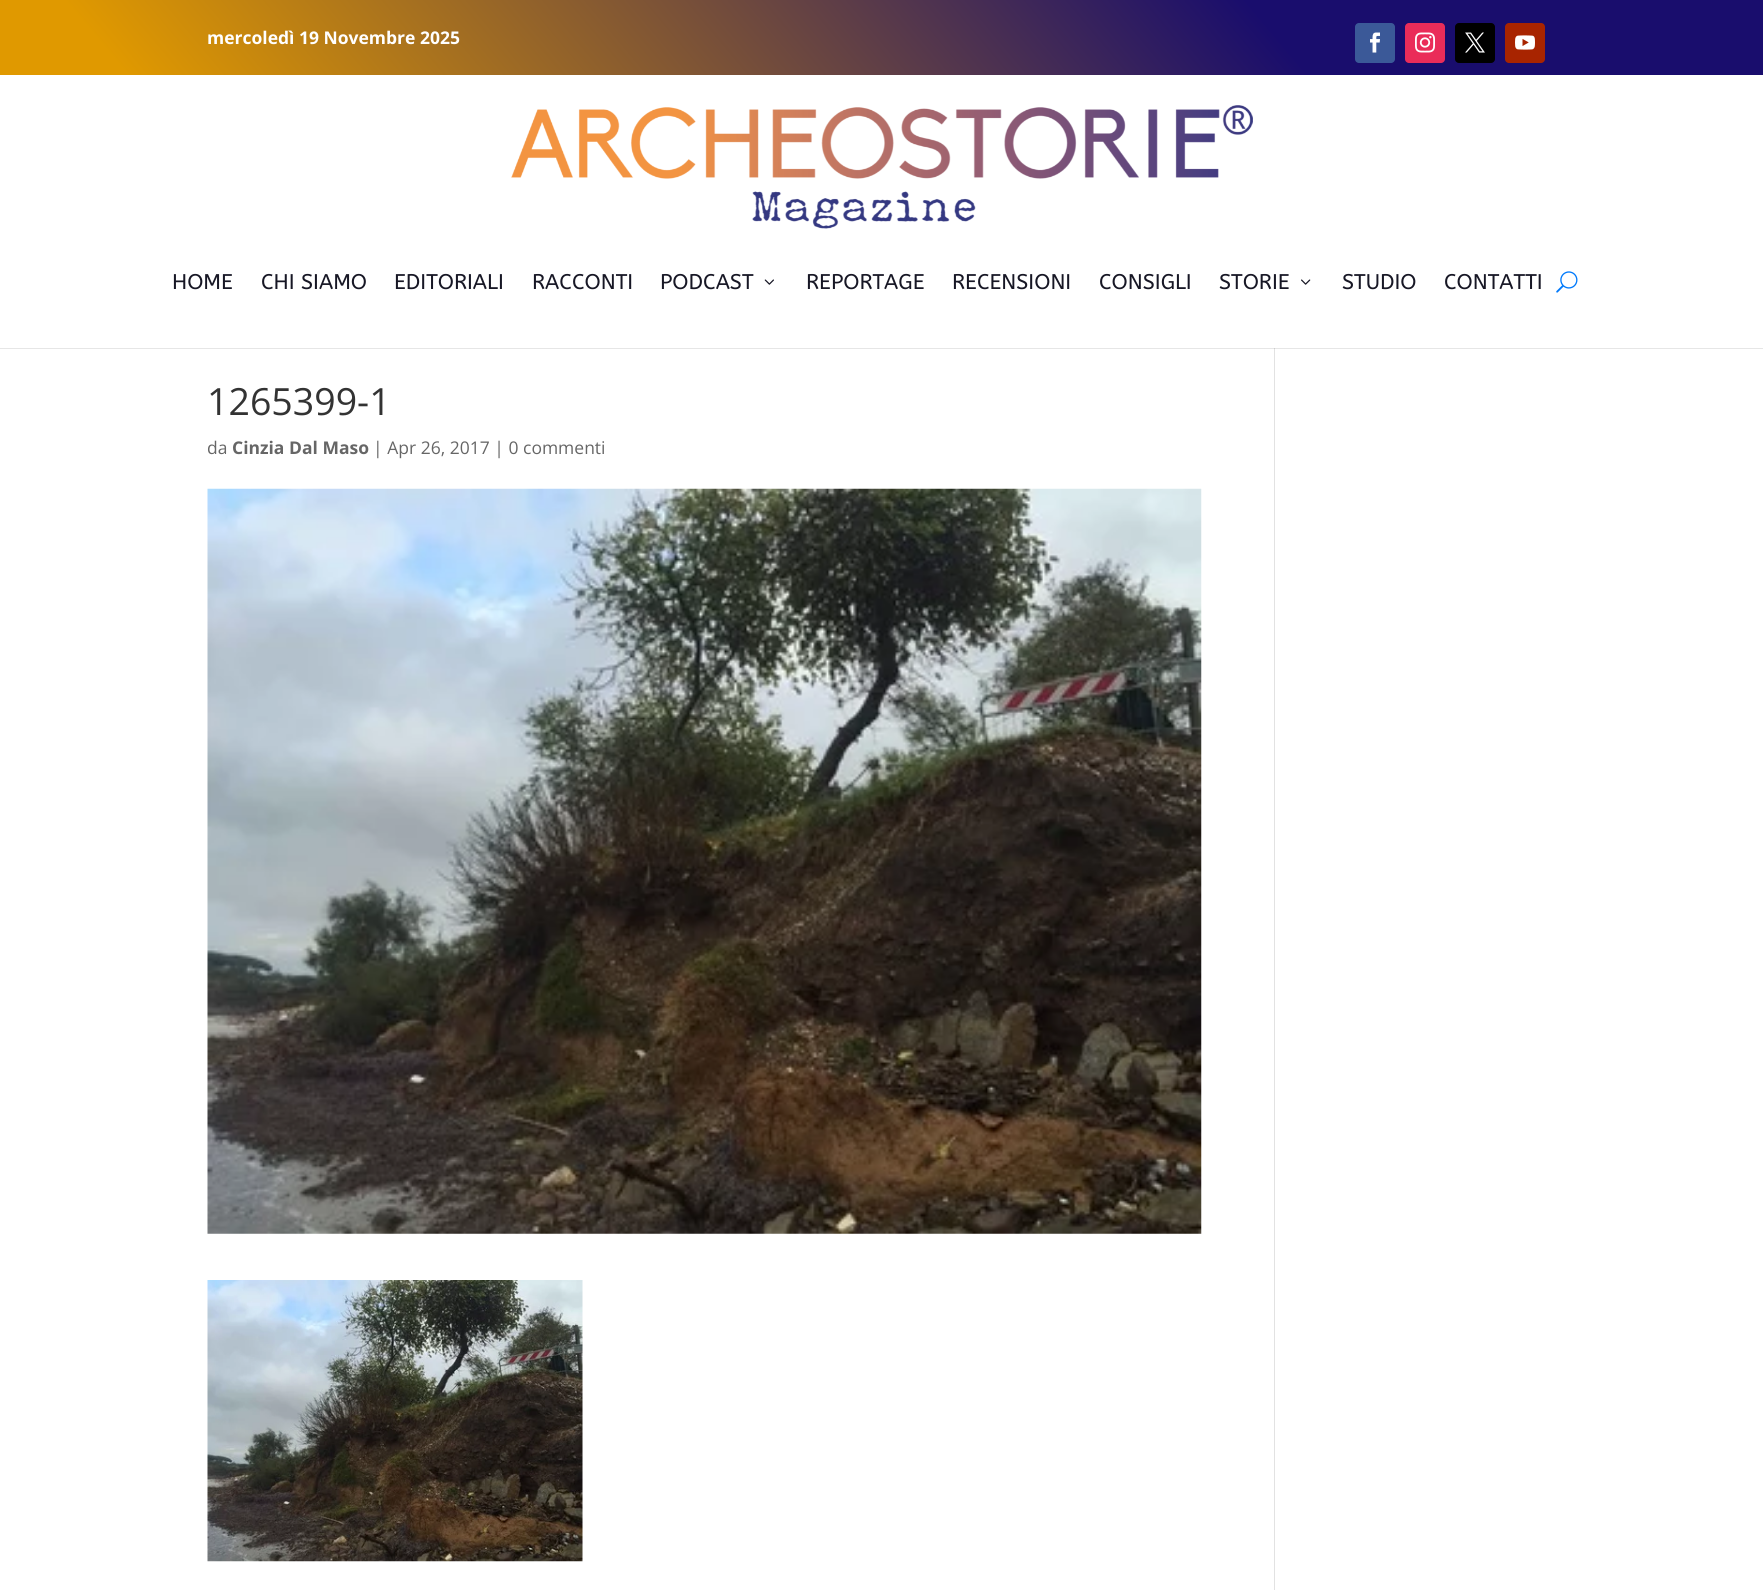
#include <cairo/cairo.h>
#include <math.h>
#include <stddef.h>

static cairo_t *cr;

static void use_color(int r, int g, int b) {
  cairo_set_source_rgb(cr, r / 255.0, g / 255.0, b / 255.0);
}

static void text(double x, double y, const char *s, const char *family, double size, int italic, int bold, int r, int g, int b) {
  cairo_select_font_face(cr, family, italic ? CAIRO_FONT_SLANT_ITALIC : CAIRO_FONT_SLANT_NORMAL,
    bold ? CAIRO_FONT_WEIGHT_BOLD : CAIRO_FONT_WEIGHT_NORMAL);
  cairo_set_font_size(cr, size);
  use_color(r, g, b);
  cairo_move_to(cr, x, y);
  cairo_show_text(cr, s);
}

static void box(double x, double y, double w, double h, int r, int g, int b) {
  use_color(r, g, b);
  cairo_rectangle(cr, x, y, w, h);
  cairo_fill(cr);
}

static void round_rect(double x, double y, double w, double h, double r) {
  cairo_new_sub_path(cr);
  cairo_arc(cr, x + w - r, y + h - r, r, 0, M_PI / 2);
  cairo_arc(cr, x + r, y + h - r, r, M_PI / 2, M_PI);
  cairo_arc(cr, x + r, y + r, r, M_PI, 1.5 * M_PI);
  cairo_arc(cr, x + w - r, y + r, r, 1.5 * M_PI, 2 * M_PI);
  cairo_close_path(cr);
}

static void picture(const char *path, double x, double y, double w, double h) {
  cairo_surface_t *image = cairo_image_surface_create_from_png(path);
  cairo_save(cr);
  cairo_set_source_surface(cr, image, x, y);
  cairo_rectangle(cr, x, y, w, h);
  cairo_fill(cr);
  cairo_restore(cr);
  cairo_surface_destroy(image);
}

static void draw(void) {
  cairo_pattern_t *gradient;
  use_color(255, 255, 255);
  cairo_paint(cr);
  gradient = cairo_pattern_create_linear(340, 505, 1424, -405);
  cairo_pattern_add_color_stop_rgba(gradient, 0.08, 0.878, 0.6, 0, 1);
  cairo_pattern_add_color_stop_rgba(gradient, 0.72, 0.098, 0.051, 0.427, 1);
  cairo_set_source(cr, gradient);
  cairo_pattern_destroy(gradient);
  cairo_rectangle(cr, 0, 0, 1763, 75);
  cairo_fill(cr);
  use_color(59, 89, 152);
  round_rect(1355, 23, 40, 40, 4);
  cairo_fill(cr);
  picture("img_01.png", 1370, 32, 10, 21);
  use_color(234, 44, 89);
  round_rect(1405, 23, 40, 40, 4);
  cairo_fill(cr);
  picture("img_02.png", 1415, 32, 20, 21);
  use_color(0, 0, 0);
  round_rect(1455, 23, 40, 40, 4);
  cairo_fill(cr);
  picture("img_03.png", 1465, 32, 20, 21);
  use_color(168, 36, 0);
  round_rect(1505, 23, 40, 40, 4);
  cairo_fill(cr);
  picture("img_04.png", 1515, 35, 20, 15);
  box(1274, 348, 1, 1242, 226, 226, 226);
  cairo_set_source_rgba(cr, 0, 0, 0, 0.1);
  cairo_new_path(cr);
  cairo_move_to(cr, 0, 348);
  cairo_line_to(cr, 0, 349);
  cairo_line_to(cr, 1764, 349);
  cairo_line_to(cr, 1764, 76);
  cairo_line_to(cr, 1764, 348);
  cairo_close_path(cr);
  cairo_fill(cr);
  picture("img_05.png", 511, 105, 742, 124);
  picture("img_06.png", 764, 279, 10, 6);
  picture("img_07.png", 1301, 279, 10, 6);
  picture("img_08.png", 1556, 271, 22, 22);
  picture("img_09.png", 207, 488, 995, 746);
  picture("img_10.png", 207, 1280, 376, 282);
  text(207, 44, "mercoledì 19 Novembre 2025", "Open Sans", 17.5, 0, 1, 255, 255, 255);
  text(172, 289, "HOME", "ABeeZee", 21.25, 0, 0, 23, 23, 37);
  text(261, 289, "CHI SIAMO", "ABeeZee", 21.25, 0, 0, 23, 23, 37);
  text(394, 289, "EDITORIALI", "ABeeZee", 21.25, 0, 0, 23, 23, 37);
  text(532, 289, "RACCONTI", "ABeeZee", 21.25, 0, 0, 23, 23, 37);
  text(660, 289, "PODCAST", "ABeeZee", 21.25, 0, 0, 23, 23, 37);
  text(806, 289, "REPORTAGE", "ABeeZee", 21.25, 0, 0, 23, 23, 37);
  text(952, 289, "RECENSIONI", "ABeeZee", 21.25, 0, 0, 23, 23, 37);
  text(1099, 289, "CONSIGLI", "ABeeZee", 21.25, 0, 0, 23, 23, 37);
  text(1219, 289, "STORIE", "ABeeZee", 21.25, 0, 0, 23, 23, 37);
  text(1342, 289, "STUDIO", "ABeeZee", 21.25, 0, 0, 23, 23, 37);
  text(1444, 289, "CONTATTI", "ABeeZee", 21.25, 0, 0, 23, 23, 37);
  text(207, 415, "1265399-1", "Open Sans", 37.5, 0, 0, 51, 51, 51);
  text(207, 454, "da", "Open Sans", 17.5, 0, 0, 102, 102, 102);
  text(232, 454, "Cinzia Dal Maso", "Open Sans", 17.5, 0, 1, 102, 102, 102);
  text(373, 454, "| Apr 26, 2017 | 0 commenti", "Open Sans", 17.5, 0, 0, 102, 102, 102);
}

int main(void) {
  cairo_surface_t *surface = cairo_image_surface_create(CAIRO_FORMAT_RGB24, 1763, 1590);
  cr = cairo_create(surface);
  cairo_font_options_t *options = cairo_font_options_create();
  cairo_font_options_set_hint_metrics(options, CAIRO_HINT_METRICS_OFF);
  cairo_font_options_set_hint_style(options, CAIRO_HINT_STYLE_NONE);
  cairo_set_font_options(cr, options);
  cairo_set_miter_limit(cr, 4);
  draw();
  cairo_surface_write_to_png(surface, "out.png");
  cairo_font_options_destroy(options);
  cairo_destroy(cr);
  cairo_surface_destroy(surface);
  return 0;
}
